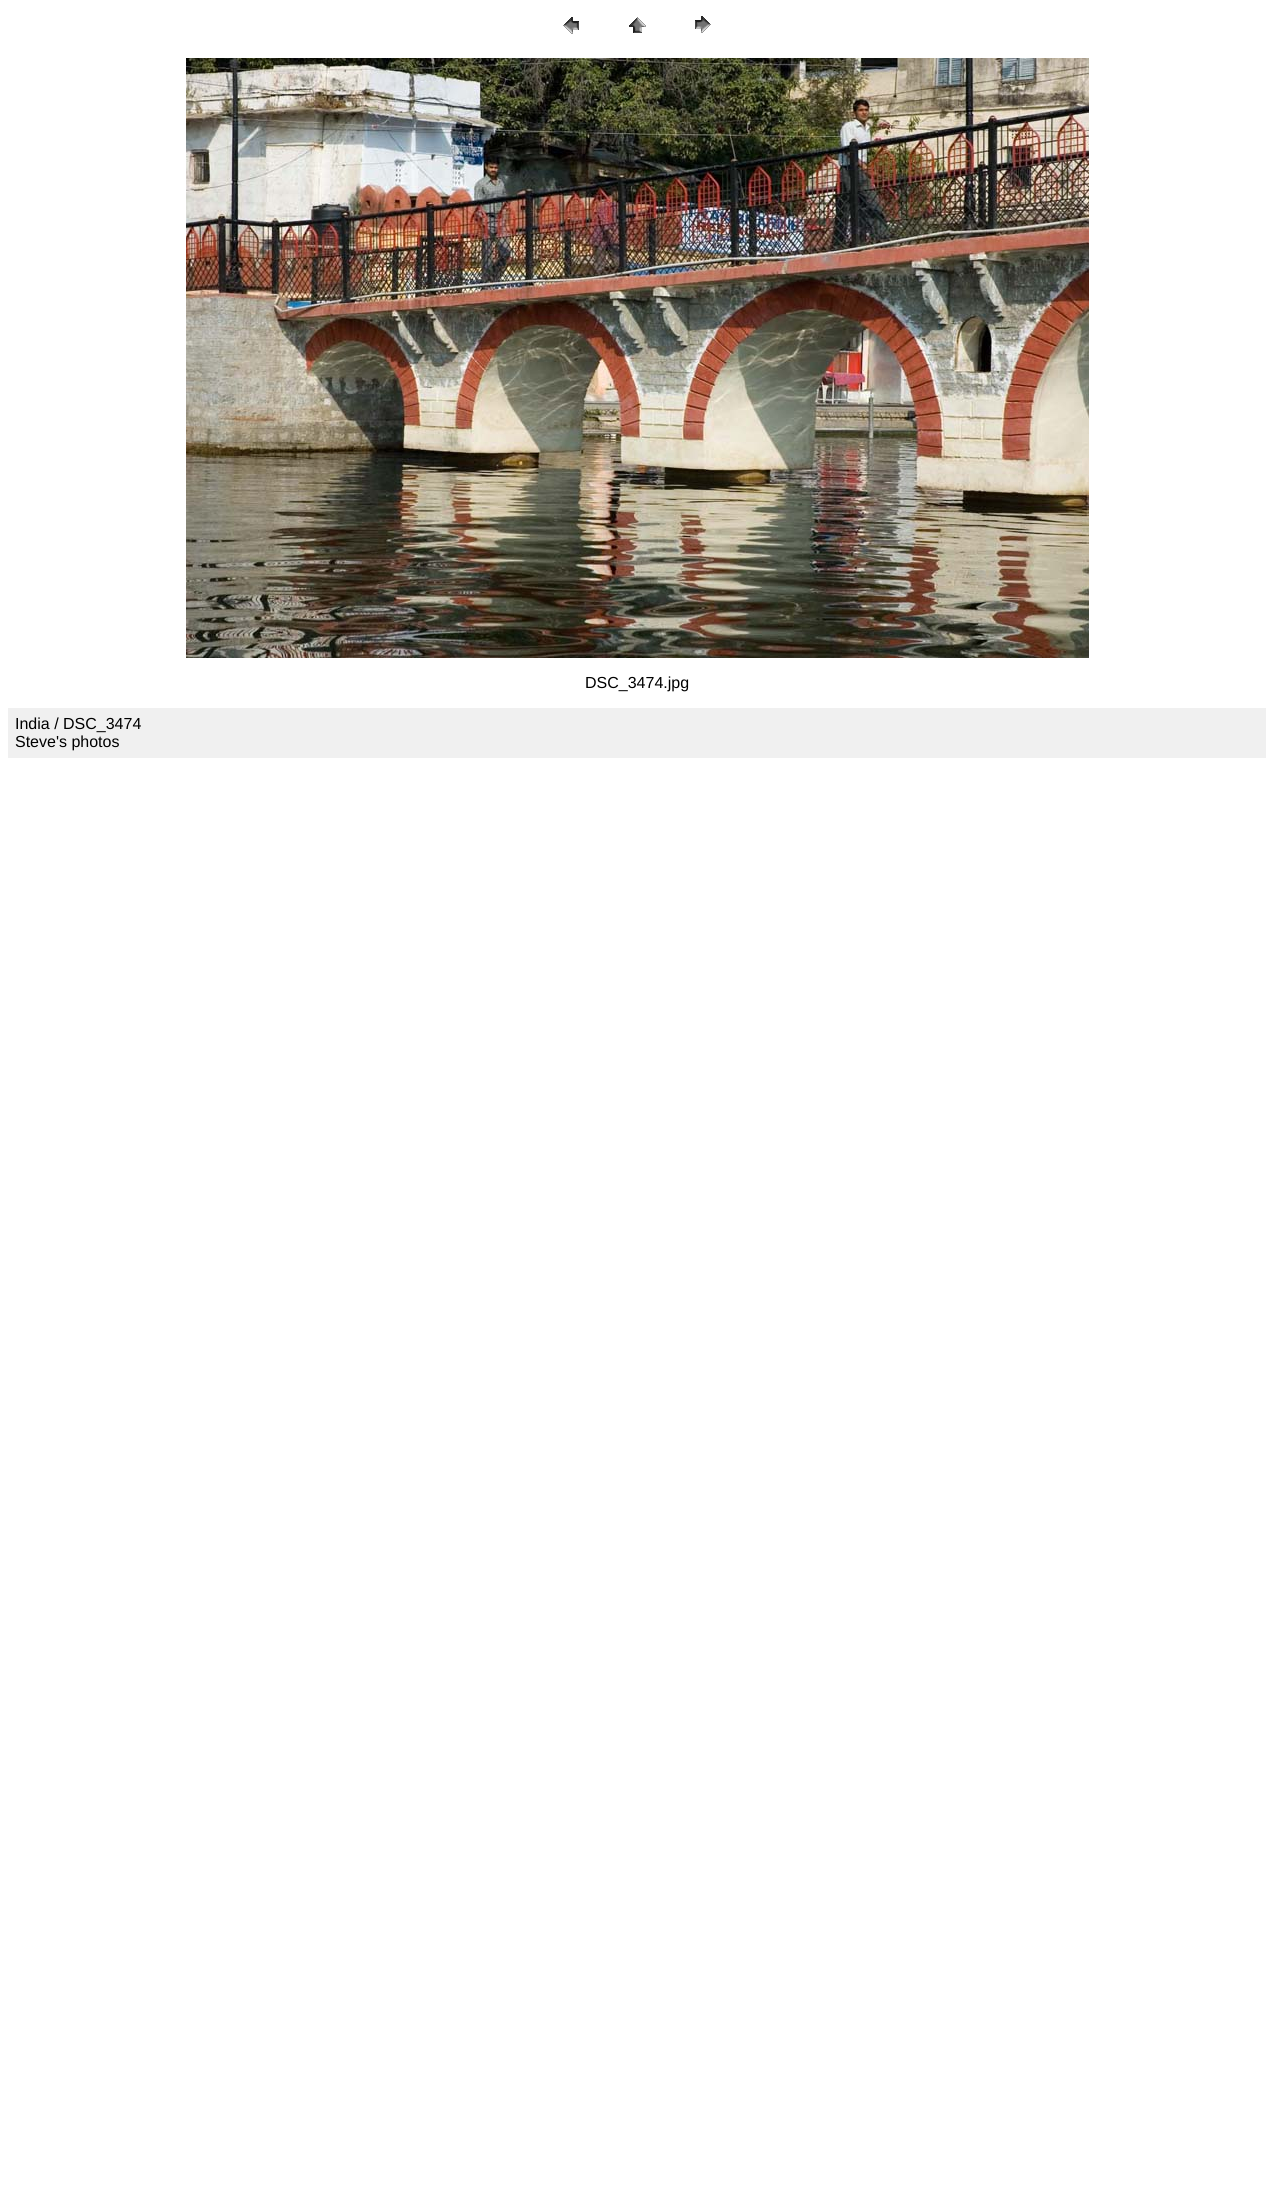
#include <cairo/cairo.h>
#include <math.h>
#include <stddef.h>

static cairo_t *cr;

static void use_color(int r, int g, int b) {
  cairo_set_source_rgb(cr, r / 255.0, g / 255.0, b / 255.0);
}

static void text(double x, double y, const char *s, const char *family, double size, int italic, int bold, int r, int g, int b) {
  cairo_select_font_face(cr, family, italic ? CAIRO_FONT_SLANT_ITALIC : CAIRO_FONT_SLANT_NORMAL,
    bold ? CAIRO_FONT_WEIGHT_BOLD : CAIRO_FONT_WEIGHT_NORMAL);
  cairo_set_font_size(cr, size);
  use_color(r, g, b);
  cairo_move_to(cr, x, y);
  cairo_show_text(cr, s);
}

static void box(double x, double y, double w, double h, int r, int g, int b) {
  use_color(r, g, b);
  cairo_rectangle(cr, x, y, w, h);
  cairo_fill(cr);
}

static void picture(const char *path, double x, double y, double w, double h) {
  cairo_surface_t *image = cairo_image_surface_create_from_png(path);
  cairo_save(cr);
  cairo_set_source_surface(cr, image, x, y);
  cairo_rectangle(cr, x, y, w, h);
  cairo_fill(cr);
  cairo_restore(cr);
  cairo_surface_destroy(image);
}

static void draw(void) {
  use_color(255, 255, 255);
  cairo_paint(cr);
  picture("img_01.png", 563, 17, 16, 17);
  picture("img_02.png", 629, 17, 17, 16);
  picture("img_03.png", 695, 16, 16, 17);
  picture("img_04.png", 186, 58, 903, 600);
  box(8, 708, 1258, 50, 240, 240, 240);
  text(585, 688, "DSC_3474.jpg", "Liberation Sans", 16, 0, 0, 0, 0, 0);
  text(15, 729, "India / DSC_3474", "Liberation Sans", 16, 0, 0, 0, 0, 0);
  text(15, 747, "Steve's photos", "Liberation Sans", 16, 0, 0, 0, 0, 0);
}

int main(void) {
  cairo_surface_t *surface = cairo_image_surface_create(CAIRO_FORMAT_RGB24, 1274, 2201);
  cr = cairo_create(surface);
  cairo_font_options_t *options = cairo_font_options_create();
  cairo_font_options_set_hint_metrics(options, CAIRO_HINT_METRICS_OFF);
  cairo_font_options_set_hint_style(options, CAIRO_HINT_STYLE_NONE);
  cairo_set_font_options(cr, options);
  cairo_set_miter_limit(cr, 4);
  draw();
  cairo_surface_write_to_png(surface, "out.png");
  cairo_font_options_destroy(options);
  cairo_destroy(cr);
  cairo_surface_destroy(surface);
  return 0;
}
